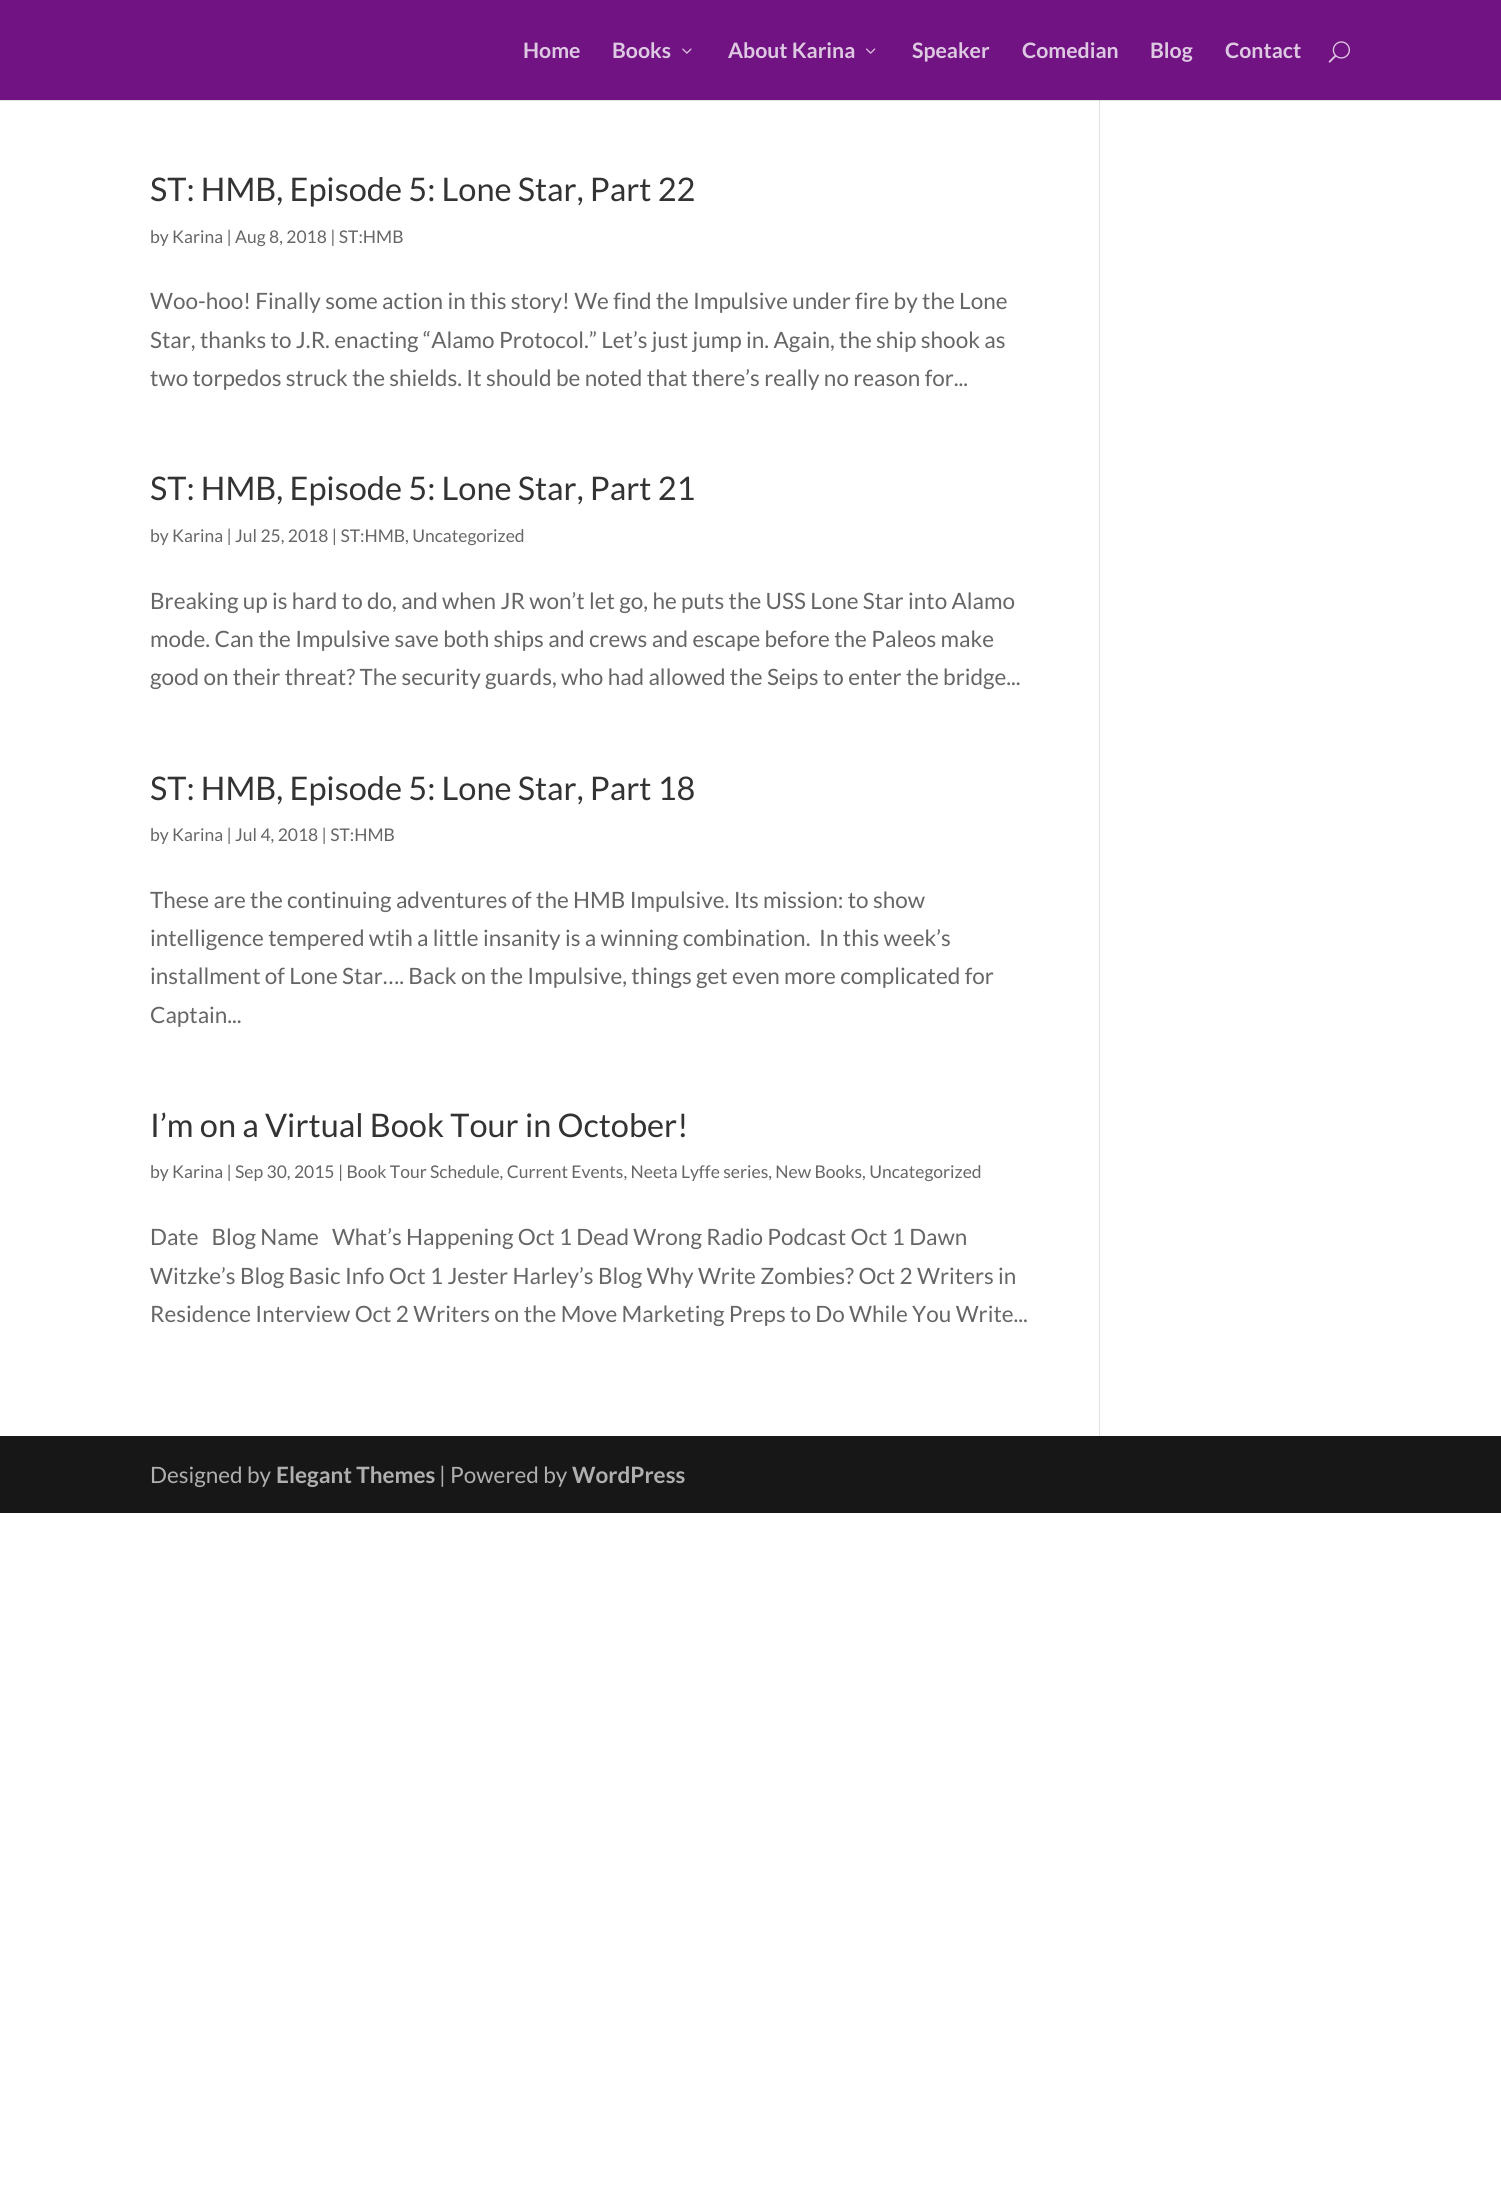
#include <cairo/cairo.h>
#include <math.h>
#include <stddef.h>

static cairo_t *cr;

static void use_color(int r, int g, int b) {
  cairo_set_source_rgb(cr, r / 255.0, g / 255.0, b / 255.0);
}

static void text(double x, double y, const char *s, const char *family, double size, int italic, int bold, int r, int g, int b) {
  cairo_select_font_face(cr, family, italic ? CAIRO_FONT_SLANT_ITALIC : CAIRO_FONT_SLANT_NORMAL,
    bold ? CAIRO_FONT_WEIGHT_BOLD : CAIRO_FONT_WEIGHT_NORMAL);
  cairo_set_font_size(cr, size);
  use_color(r, g, b);
  cairo_move_to(cr, x, y);
  cairo_show_text(cr, s);
}

static void box(double x, double y, double w, double h, int r, int g, int b) {
  use_color(r, g, b);
  cairo_rectangle(cr, x, y, w, h);
  cairo_fill(cr);
}

static void picture(const char *path, double x, double y, double w, double h) {
  cairo_surface_t *image = cairo_image_surface_create_from_png(path);
  cairo_save(cr);
  cairo_set_source_surface(cr, image, x, y);
  cairo_rectangle(cr, x, y, w, h);
  cairo_fill(cr);
  cairo_restore(cr);
  cairo_surface_destroy(image);
}

static void draw(void) {
  use_color(255, 255, 255);
  cairo_paint(cr);
  box(0, 100, 1501, 1, 230, 230, 230);
  box(0, 0, 1501, 100, 113, 19, 130);
  picture("img_01.png", 682, 48, 10, 6);
  picture("img_02.png", 866, 48, 10, 6);
  picture("img_03.png", 1328, 41, 22, 22);
  box(1099, 100, 1, 1336, 226, 226, 226);
  box(1099, 100, 1, 1, 203, 203, 203);
  box(0, 1436, 1501, 77, 23, 23, 23);
  text(523, 58, "Home", "Lato", 21.25, 0, 1, 222, 201, 226);
  text(612, 58, "Books", "Lato", 21.25, 0, 1, 222, 201, 226);
  text(728, 58, "About Karina", "Lato", 21.25, 0, 1, 222, 201, 226);
  text(912, 58, "Speaker", "Lato", 21.25, 0, 1, 222, 201, 226);
  text(1022, 58, "Comedian", "Lato", 21.25, 0, 1, 222, 201, 226);
  text(1150, 58, "Blog", "Lato", 21.25, 0, 1, 222, 201, 226);
  text(1225, 58, "Contact", "Lato", 21.25, 0, 1, 222, 201, 226);
  text(150, 201, "ST: HMB, Episode 5: Lone Star, Part 22", "Lato", 32.5, 0, 0, 51, 51, 51);
  text(150, 243, "by Karina | Aug 8, 2018 | ST:HMB", "Lato", 17.5, 0, 0, 102, 102, 102);
  text(150, 309, "Woo-hoo! Finally some action in this story! We find the Impulsive under fire by the Lone", "Lato", 22.5, 0, 0, 102, 102, 102);
  text(150, 348, "Star, thanks to J.R. enacting “Alamo Protocol.” Let’s just jump in. Again, the ship shook as", "Lato", 22.5, 0, 0, 102, 102, 102);
  text(150, 386, "two torpedos struck the shields. It should be noted that there’s really no reason for...", "Lato", 22.5, 0, 0, 102, 102, 102);
  text(150, 500, "ST: HMB, Episode 5: Lone Star, Part 21", "Lato", 32.5, 0, 0, 51, 51, 51);
  text(150, 542, "by Karina | Jul 25, 2018 | ST:HMB, Uncategorized", "Lato", 17.5, 0, 0, 102, 102, 102);
  text(150, 609, "Breaking up is hard to do, and when JR won’t let go, he puts the USS Lone Star into Alamo", "Lato", 22.5, 0, 0, 102, 102, 102);
  text(150, 647, "mode. Can the Impulsive save both ships and crews and escape before the Paleos make", "Lato", 22.5, 0, 0, 102, 102, 102);
  text(150, 685, "good on their threat? The security guards, who had allowed the Seips to enter the bridge...", "Lato", 22.5, 0, 0, 102, 102, 102);
  text(150, 800, "ST: HMB, Episode 5: Lone Star, Part 18", "Lato", 32.5, 0, 0, 51, 51, 51);
  text(150, 841, "by Karina | Jul 4, 2018 | ST:HMB", "Lato", 17.5, 0, 0, 102, 102, 102);
  text(150, 908, "These are the continuing adventures of the HMB Impulsive. Its mission: to show", "Lato", 22.5, 0, 0, 102, 102, 102);
  text(150, 946, "intelligence tempered wtih a little insanity is a winning combination.  In this week’s", "Lato", 22.5, 0, 0, 102, 102, 102);
  text(150, 984, "installment of Lone Star…. Back on the Impulsive, things get even more complicated for", "Lato", 22.5, 0, 0, 102, 102, 102);
  text(150, 1023, "Captain...", "Lato", 22.5, 0, 0, 102, 102, 102);
  text(150, 1137, "I’m on a Virtual Book Tour in October!", "Lato", 32.5, 0, 0, 51, 51, 51);
  text(150, 1178, "by Karina | Sep 30, 2015 | Book Tour Schedule, Current Events, Neeta Lyffe series, New Books, Uncategorized", "Lato", 17.5, 0, 0, 102, 102, 102);
  text(150, 1245, "Date   Blog Name   What’s Happening Oct 1 Dead Wrong Radio Podcast Oct 1 Dawn", "Lato", 22.5, 0, 0, 102, 102, 102);
  text(150, 1284, "Witzke’s Blog Basic Info Oct 1 Jester Harley’s Blog Why Write Zombies? Oct 2 Writers in", "Lato", 22.5, 0, 0, 102, 102, 102);
  text(150, 1322, "Residence Interview Oct 2 Writers on the Move Marketing Preps to Do While You Write...", "Lato", 22.5, 0, 0, 102, 102, 102);
  text(150, 1483, "Designed by", "Lato", 22.5, 0, 0, 175, 175, 175);
  text(276, 1483, "Elegant Themes", "Lato", 22.5, 0, 1, 175, 175, 175);
  text(439, 1483, "| Powered by", "Lato", 22.5, 0, 0, 175, 175, 175);
  text(572, 1483, "WordPress", "Lato", 22.5, 0, 1, 175, 175, 175);
}

int main(void) {
  cairo_surface_t *surface = cairo_image_surface_create(CAIRO_FORMAT_RGB24, 1501, 2201);
  cr = cairo_create(surface);
  cairo_font_options_t *options = cairo_font_options_create();
  cairo_font_options_set_hint_metrics(options, CAIRO_HINT_METRICS_OFF);
  cairo_font_options_set_hint_style(options, CAIRO_HINT_STYLE_NONE);
  cairo_set_font_options(cr, options);
  cairo_set_miter_limit(cr, 4);
  draw();
  cairo_surface_write_to_png(surface, "out.png");
  cairo_font_options_destroy(options);
  cairo_destroy(cr);
  cairo_surface_destroy(surface);
  return 0;
}
